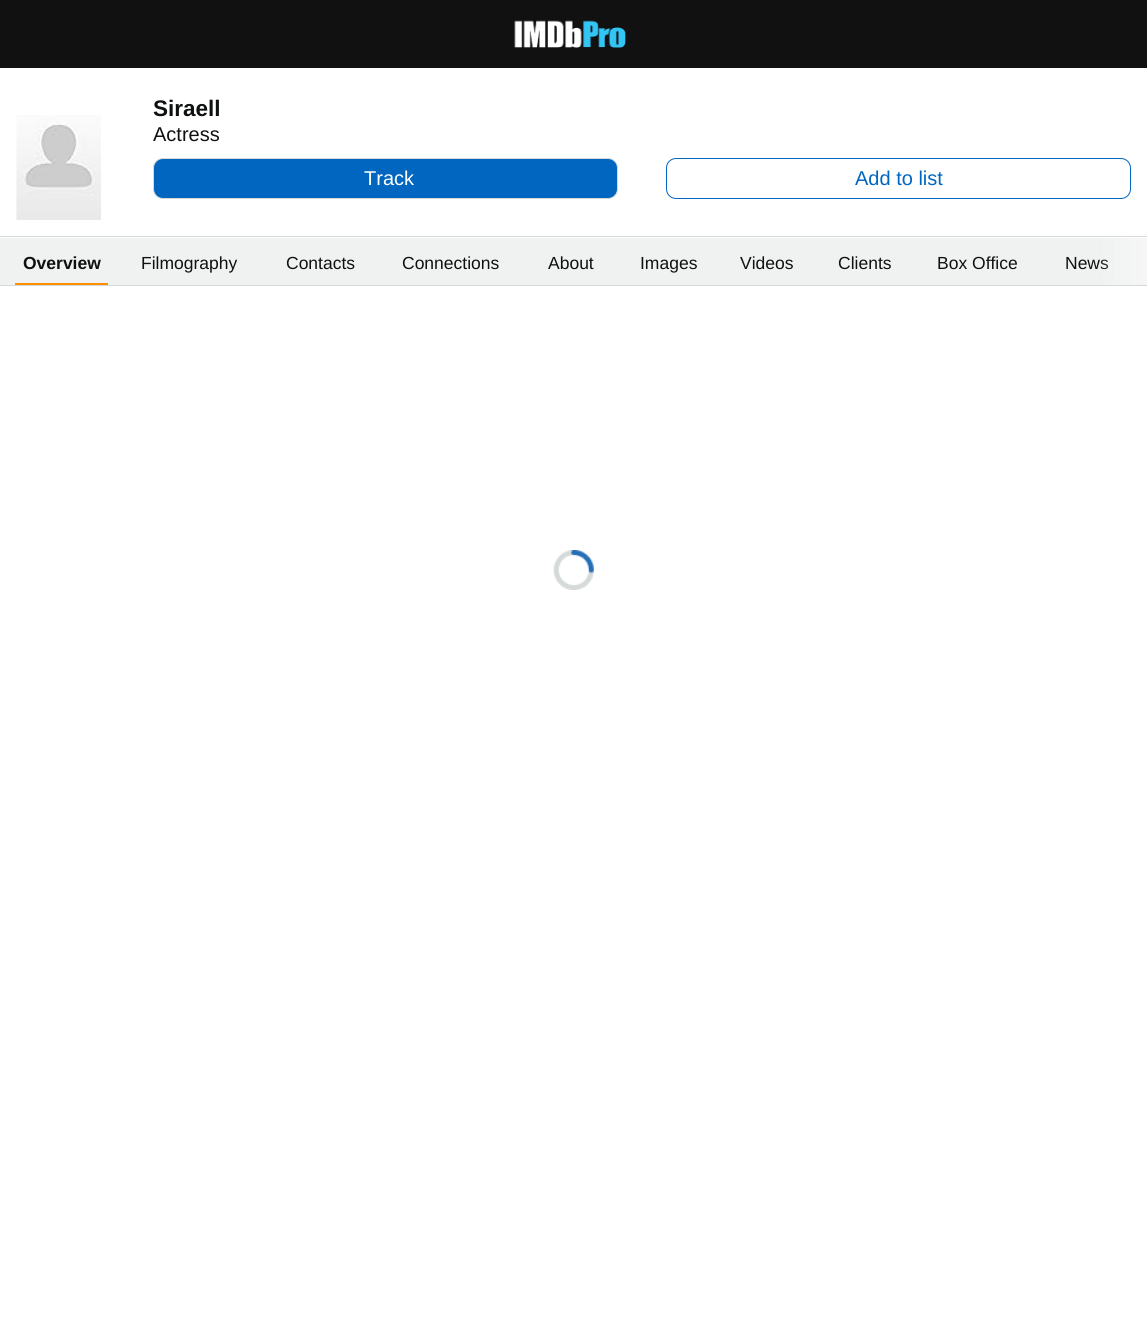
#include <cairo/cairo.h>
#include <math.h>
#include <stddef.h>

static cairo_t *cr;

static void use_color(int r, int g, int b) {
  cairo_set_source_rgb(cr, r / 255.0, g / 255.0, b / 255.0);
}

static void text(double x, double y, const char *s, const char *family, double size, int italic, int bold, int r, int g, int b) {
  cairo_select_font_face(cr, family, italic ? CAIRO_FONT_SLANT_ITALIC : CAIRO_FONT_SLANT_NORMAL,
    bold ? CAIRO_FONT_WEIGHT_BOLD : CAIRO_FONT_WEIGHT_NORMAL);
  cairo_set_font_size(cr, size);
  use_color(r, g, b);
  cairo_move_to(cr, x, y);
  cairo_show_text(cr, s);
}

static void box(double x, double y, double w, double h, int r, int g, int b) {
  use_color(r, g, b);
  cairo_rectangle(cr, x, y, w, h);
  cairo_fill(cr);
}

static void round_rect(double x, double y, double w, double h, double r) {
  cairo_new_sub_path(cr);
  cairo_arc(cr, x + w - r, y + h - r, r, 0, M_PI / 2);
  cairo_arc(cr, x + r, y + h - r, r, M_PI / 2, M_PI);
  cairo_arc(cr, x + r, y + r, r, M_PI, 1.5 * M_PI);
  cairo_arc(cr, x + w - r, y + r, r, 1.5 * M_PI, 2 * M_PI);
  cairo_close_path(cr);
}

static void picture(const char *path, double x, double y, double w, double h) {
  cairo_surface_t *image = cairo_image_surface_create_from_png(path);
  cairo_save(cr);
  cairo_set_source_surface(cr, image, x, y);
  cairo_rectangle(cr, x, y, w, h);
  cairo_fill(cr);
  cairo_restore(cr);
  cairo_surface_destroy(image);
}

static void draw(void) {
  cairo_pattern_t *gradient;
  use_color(255, 255, 255);
  cairo_paint(cr);
  box(0, 0, 1147, 68, 17, 17, 17);
  picture("img_01.png", 514, 20, 112, 28);
  picture("img_02.png", 16, 115, 85, 105);
  use_color(0, 102, 192);
  round_rect(153.5, 158.5, 464, 40, 9.5);
  cairo_fill_preserve(cr);
  use_color(213, 217, 217);
  cairo_set_line_width(cr, 1);
  cairo_stroke(cr);
  round_rect(666.5, 158.5, 464, 40, 9.5);
  use_color(0, 102, 192);
  cairo_stroke(cr);
  box(0, 236, 1147, 1, 213, 217, 217);
  box(0, 238, 1147, 47, 240, 242, 242);
  box(15, 283, 93, 2, 255, 143, 0);
  box(0, 285, 1147, 1, 213, 217, 217);
  picture("img_03.png", 553, 550, 41, 40);
  text(153, 116, "Siraell", "Liberation Sans", 22.5, 0, 1, 15, 17, 17);
  text(153, 141, "Actress", "Liberation Sans", 20, 0, 0, 15, 17, 17);
  text(364, 185, "Track", "Liberation Sans", 20, 0, 0, 255, 255, 255);
  text(855, 185, "Add to list", "Liberation Sans", 20, 0, 0, 0, 102, 192);
  text(23, 269, "Overview", "Liberation Sans", 17.5, 0, 1, 15, 17, 17);
  text(141, 269, "Filmography", "Liberation Sans", 17.5, 0, 0, 15, 17, 17);
  text(286, 269, "Contacts", "Liberation Sans", 17.5, 0, 0, 15, 17, 17);
  text(402, 269, "Connections", "Liberation Sans", 17.5, 0, 0, 15, 17, 17);
  text(548, 269, "About", "Liberation Sans", 17.5, 0, 0, 15, 17, 17);
  text(640, 269, "Images", "Liberation Sans", 17.5, 0, 0, 15, 17, 17);
  text(740, 269, "Videos", "Liberation Sans", 17.5, 0, 0, 15, 17, 17);
  text(838, 269, "Clients", "Liberation Sans", 17.5, 0, 0, 15, 17, 17);
  text(937, 269, "Box Office", "Liberation Sans", 17.5, 0, 0, 15, 17, 17);
  text(1065, 269, "News", "Liberation Sans", 17.5, 0, 0, 15, 17, 17);
  gradient = cairo_pattern_create_linear(1098, 261, 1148, 261);
  cairo_pattern_add_color_stop_rgba(gradient, 0, 0.965, 0.965, 0.965, 0);
  cairo_pattern_add_color_stop_rgba(gradient, 1, 0.965, 0.965, 0.965, 1);
  cairo_set_source(cr, gradient);
  cairo_pattern_destroy(gradient);
  cairo_rectangle(cr, 1099, 238, 48, 47);
  cairo_fill(cr);
}

int main(void) {
  cairo_surface_t *surface = cairo_image_surface_create(CAIRO_FORMAT_RGB24, 1147, 1320);
  cr = cairo_create(surface);
  cairo_font_options_t *options = cairo_font_options_create();
  cairo_font_options_set_hint_metrics(options, CAIRO_HINT_METRICS_OFF);
  cairo_font_options_set_hint_style(options, CAIRO_HINT_STYLE_NONE);
  cairo_set_font_options(cr, options);
  cairo_set_miter_limit(cr, 4);
  draw();
  cairo_surface_write_to_png(surface, "out.png");
  cairo_font_options_destroy(options);
  cairo_destroy(cr);
  cairo_surface_destroy(surface);
  return 0;
}
